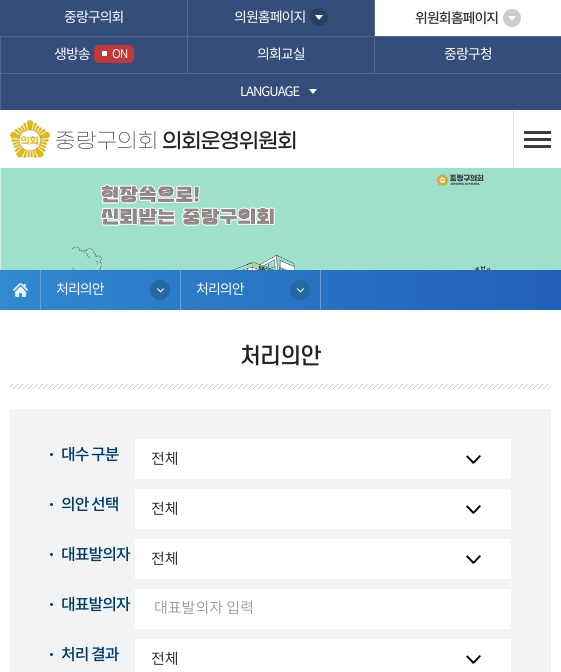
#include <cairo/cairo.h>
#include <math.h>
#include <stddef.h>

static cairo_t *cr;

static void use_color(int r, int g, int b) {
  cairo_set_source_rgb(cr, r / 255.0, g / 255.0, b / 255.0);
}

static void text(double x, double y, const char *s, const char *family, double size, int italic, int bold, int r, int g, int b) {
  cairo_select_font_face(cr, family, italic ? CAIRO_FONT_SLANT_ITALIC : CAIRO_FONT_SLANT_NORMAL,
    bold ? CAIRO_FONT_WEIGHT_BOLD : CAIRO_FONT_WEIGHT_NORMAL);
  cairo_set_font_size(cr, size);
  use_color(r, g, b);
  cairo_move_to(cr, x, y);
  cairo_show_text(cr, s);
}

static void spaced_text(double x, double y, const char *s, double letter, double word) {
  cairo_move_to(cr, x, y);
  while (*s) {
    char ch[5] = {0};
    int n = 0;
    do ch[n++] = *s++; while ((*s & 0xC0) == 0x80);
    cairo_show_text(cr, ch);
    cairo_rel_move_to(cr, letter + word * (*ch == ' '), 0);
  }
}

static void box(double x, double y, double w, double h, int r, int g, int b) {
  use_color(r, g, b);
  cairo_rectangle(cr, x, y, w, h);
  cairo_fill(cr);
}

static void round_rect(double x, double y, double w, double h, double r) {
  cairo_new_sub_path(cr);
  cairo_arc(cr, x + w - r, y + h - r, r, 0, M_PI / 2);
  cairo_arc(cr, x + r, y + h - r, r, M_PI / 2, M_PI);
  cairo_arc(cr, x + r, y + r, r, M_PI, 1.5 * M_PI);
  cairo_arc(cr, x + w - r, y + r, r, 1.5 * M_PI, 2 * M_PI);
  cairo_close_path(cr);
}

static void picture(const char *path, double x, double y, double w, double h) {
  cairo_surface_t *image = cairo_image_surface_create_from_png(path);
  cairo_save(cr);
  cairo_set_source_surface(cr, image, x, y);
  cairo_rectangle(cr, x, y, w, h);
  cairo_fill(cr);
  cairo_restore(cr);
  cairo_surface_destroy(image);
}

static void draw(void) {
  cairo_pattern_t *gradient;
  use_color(255, 255, 255);
  cairo_paint(cr);
  box(0, 0, 561, 110, 53, 77, 123);
  box(0, 36, 187, 1, 83, 104, 143);
  cairo_new_path(cr);
  cairo_move_to(cr, 374, 37);
  cairo_line_to(cr, 187, 37);
  cairo_line_to(cr, 188, 36);
  cairo_line_to(cr, 374, 36);
  cairo_close_path(cr);
  cairo_fill(cr);
  cairo_set_source_rgba(cr, 1, 1, 1, 0.15);
  cairo_new_path(cr);
  cairo_move_to(cr, 187, 37);
  cairo_line_to(cr, 187, 0);
  cairo_line_to(cr, 188, 0);
  cairo_line_to(cr, 188, 36);
  cairo_close_path(cr);
  cairo_fill(cr);
  use_color(42, 62, 98);
  cairo_arc(cr, 319, 17, 9, 0, 2 * M_PI);
  cairo_fill(cr);
  picture("img_01.png", 315, 15, 8, 5);
  use_color(83, 104, 143);
  cairo_new_path(cr);
  cairo_move_to(cr, 561, 37);
  cairo_line_to(cr, 374, 37);
  cairo_line_to(cr, 375, 36);
  cairo_line_to(cr, 561, 36);
  cairo_close_path(cr);
  cairo_fill(cr);
  cairo_set_source_rgba(cr, 1, 1, 1, 0.15);
  cairo_new_path(cr);
  cairo_move_to(cr, 374, 37);
  cairo_line_to(cr, 374, 0);
  cairo_line_to(cr, 375, 0);
  cairo_line_to(cr, 375, 36);
  cairo_close_path(cr);
  cairo_fill(cr);
  box(375, 0, 186, 36, 255, 255, 255);
  use_color(204, 204, 204);
  cairo_arc(cr, 512, 18, 9, 0, 2 * M_PI);
  cairo_fill(cr);
  picture("img_02.png", 508, 16, 8, 5);
  box(0, 37, 1, 36, 83, 104, 143);
  use_color(192, 58, 59);
  round_rect(94, 45, 40, 18, 5);
  cairo_fill(cr);
  box(102, 51, 5, 5, 255, 255, 255);
  box(187, 37, 1, 36, 83, 104, 143);
  box(374, 37, 1, 36, 83, 104, 143);
  box(0, 73, 561, 1, 83, 104, 143);
  box(0, 74, 1, 36, 83, 104, 143);
  picture("img_03.png", 309, 89, 8, 5);
  picture("img_04.png", 10, 120, 40, 38);
  box(513, 110, 1, 58, 221, 221, 221);
  box(524, 131, 27, 3, 61, 61, 61);
  box(524, 138, 27, 3, 61, 61, 61);
  box(524, 145, 27, 3, 61, 61, 61);
  picture("img_05.png", 0, 168, 561, 102);
  gradient = cairo_pattern_create_linear(0, 290, 561, 290);
  cairo_pattern_add_color_stop_rgba(gradient, 0, 0.192, 0.537, 0.812, 1);
  cairo_pattern_add_color_stop_rgba(gradient, 0.5, 0.157, 0.455, 0.765, 1);
  cairo_pattern_add_color_stop_rgba(gradient, 1, 0.129, 0.376, 0.722, 1);
  cairo_set_source(cr, gradient);
  cairo_pattern_destroy(gradient);
  cairo_rectangle(cr, 0, 270, 561, 40);
  cairo_fill(cr);
  picture("img_06.png", 13, 283, 15, 14);
  box(40, 270, 1, 40, 100, 164, 218);
  box(180, 270, 1, 40, 107, 163, 216);
  use_color(37, 104, 162);
  cairo_arc(cr, 160, 290, 10, 0, 2 * M_PI);
  cairo_fill(cr);
  use_color(255, 255, 255);
  cairo_new_path(cr);
  cairo_move_to(cr, 164, 289);
  cairo_line_to(cr, 160.5, 292.5);
  cairo_line_to(cr, 160, 291.5);
  cairo_line_to(cr, 163.5, 288);
  cairo_close_path(cr);
  cairo_fill(cr);
  cairo_new_path(cr);
  cairo_move_to(cr, 161, 291.5);
  cairo_line_to(cr, 160.5, 292.5);
  cairo_line_to(cr, 157, 289);
  cairo_line_to(cr, 157.5, 288);
  cairo_close_path(cr);
  cairo_fill(cr);
  box(320, 270, 1, 40, 104, 156, 212);
  use_color(37, 104, 162);
  cairo_arc(cr, 300, 290, 10, 0, 2 * M_PI);
  cairo_fill(cr);
  use_color(255, 255, 255);
  cairo_new_path(cr);
  cairo_move_to(cr, 304, 289);
  cairo_line_to(cr, 300.5, 292.5);
  cairo_line_to(cr, 300, 291.5);
  cairo_line_to(cr, 303.5, 288);
  cairo_close_path(cr);
  cairo_fill(cr);
  cairo_new_path(cr);
  cairo_move_to(cr, 301, 291.5);
  cairo_line_to(cr, 300.5, 292.5);
  cairo_line_to(cr, 297, 289);
  cairo_line_to(cr, 297.5, 288);
  cairo_close_path(cr);
  cairo_fill(cr);
  picture("img_07.png", 10, 384, 541, 5);
  box(10, 409, 541, 263, 241, 243, 245);
  use_color(0, 57, 100);
  cairo_arc(cr, 51.5, 454.5, 1.5, 0, 2 * M_PI);
  cairo_fill(cr);
  box(135, 439, 376, 40, 255, 255, 255);
  picture("img_08.png", 466, 455, 15, 9);
  use_color(0, 57, 100);
  cairo_arc(cr, 51.5, 504.5, 1.5, 0, 2 * M_PI);
  cairo_fill(cr);
  box(135, 489, 376, 40, 255, 255, 255);
  picture("img_08.png", 466, 505, 15, 9);
  use_color(0, 57, 100);
  cairo_arc(cr, 51.5, 554.5, 1.5, 0, 2 * M_PI);
  cairo_fill(cr);
  box(135, 539, 376, 40, 255, 255, 255);
  picture("img_08.png", 466, 555, 15, 9);
  use_color(0, 57, 100);
  cairo_arc(cr, 51.5, 604.5, 1.5, 0, 2 * M_PI);
  cairo_fill(cr);
  box(135, 589, 376, 40, 255, 255, 255);
  use_color(0, 57, 100);
  cairo_arc(cr, 51.5, 654.5, 1.5, 0, 2 * M_PI);
  cairo_fill(cr);
  box(135, 639, 376, 33, 255, 255, 255);
  picture("img_08.png", 466, 655, 15, 9);
  cairo_select_font_face(cr, "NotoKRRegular", CAIRO_FONT_SLANT_NORMAL, CAIRO_FONT_WEIGHT_NORMAL);
  cairo_set_font_size(cr, 14);
  spaced_text(64, 22, "중랑구의회", -1, 0);
  spaced_text(234, 22, "의원홈페이지", -1, 0);
  cairo_select_font_face(cr, "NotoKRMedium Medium", CAIRO_FONT_SLANT_NORMAL, CAIRO_FONT_WEIGHT_NORMAL);
  use_color(51, 51, 51);
  spaced_text(415, 23, "위원회홈페이지", -1, 0);
  cairo_select_font_face(cr, "NotoKRRegular", CAIRO_FONT_SLANT_NORMAL, CAIRO_FONT_WEIGHT_NORMAL);
  use_color(255, 255, 255);
  spaced_text(54, 59, "생방송", -1, 0);
  cairo_select_font_face(cr, "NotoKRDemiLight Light", CAIRO_FONT_SLANT_NORMAL, CAIRO_FONT_WEIGHT_NORMAL);
  cairo_set_font_size(cr, 12);
  spaced_text(112, 58, "ON", -1, 0);
  cairo_select_font_face(cr, "NotoKRRegular", CAIRO_FONT_SLANT_NORMAL, CAIRO_FONT_WEIGHT_NORMAL);
  cairo_set_font_size(cr, 14);
  spaced_text(257, 59, "의회교실", -1, 0);
  spaced_text(444, 59, "중랑구청", -1, 0);
  cairo_set_font_size(cr, 13);
  spaced_text(240, 96, "LANGUAGE", -1, 0);
  cairo_select_font_face(cr, "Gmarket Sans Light", CAIRO_FONT_SLANT_NORMAL, CAIRO_FONT_WEIGHT_NORMAL);
  cairo_set_font_size(cr, 21);
  use_color(85, 85, 85);
  spaced_text(55, 147, "중랑구의회", 0.5, 0);
  cairo_select_font_face(cr, "Gmarket Sans Medium", CAIRO_FONT_SLANT_NORMAL, CAIRO_FONT_WEIGHT_NORMAL);
  use_color(34, 34, 34);
  spaced_text(162, 147, "의회운영위원회", -1, 0);
  cairo_select_font_face(cr, "NotoKRRegular", CAIRO_FONT_SLANT_NORMAL, CAIRO_FONT_WEIGHT_NORMAL);
  cairo_set_font_size(cr, 14);
  use_color(255, 255, 255);
  spaced_text(56, 294, "처리의안", -1, 0);
  spaced_text(196, 294, "처리의안", -1, 0);
  cairo_select_font_face(cr, "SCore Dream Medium", CAIRO_FONT_SLANT_NORMAL, CAIRO_FONT_WEIGHT_NORMAL);
  cairo_set_font_size(cr, 22);
  use_color(34, 34, 34);
  spaced_text(240, 364, "처리의안", -1, 0);
  cairo_select_font_face(cr, "NotoKRMedium Medium", CAIRO_FONT_SLANT_NORMAL, CAIRO_FONT_WEIGHT_NORMAL);
  cairo_set_font_size(cr, 16);
  use_color(0, 57, 100);
  spaced_text(61, 460, "대수 구분", -1, 0);
  text(151, 464, "전체", "NotoKRDemiLight Light", 15, 0, 0, 34, 34, 34);
  cairo_select_font_face(cr, "NotoKRMedium Medium", CAIRO_FONT_SLANT_NORMAL, CAIRO_FONT_WEIGHT_NORMAL);
  cairo_set_font_size(cr, 16);
  use_color(0, 57, 100);
  spaced_text(61, 510, "의안 선택", -1, 0);
  text(151, 514, "전체", "NotoKRDemiLight Light", 15, 0, 0, 34, 34, 34);
  cairo_select_font_face(cr, "NotoKRMedium Medium", CAIRO_FONT_SLANT_NORMAL, CAIRO_FONT_WEIGHT_NORMAL);
  cairo_set_font_size(cr, 16);
  use_color(0, 57, 100);
  spaced_text(61, 560, "대표발의자", -1, 0);
  text(151, 564, "전체", "NotoKRDemiLight Light", 15, 0, 0, 34, 34, 34);
  cairo_select_font_face(cr, "NotoKRMedium Medium", CAIRO_FONT_SLANT_NORMAL, CAIRO_FONT_WEIGHT_NORMAL);
  cairo_set_font_size(cr, 16);
  use_color(0, 57, 100);
  spaced_text(61, 610, "대표발의자", -1, 0);
  text(154, 613, "대표발의자 입력", "NotoKRDemiLight Light", 15, 0, 0, 153, 153, 153);
  cairo_select_font_face(cr, "NotoKRMedium Medium", CAIRO_FONT_SLANT_NORMAL, CAIRO_FONT_WEIGHT_NORMAL);
  cairo_set_font_size(cr, 16);
  use_color(0, 57, 100);
  spaced_text(61, 660, "처리 결과", -1, 0);
  text(151, 664, "전체", "NotoKRDemiLight Light", 15, 0, 0, 34, 34, 34);
}

int main(void) {
  cairo_surface_t *surface = cairo_image_surface_create(CAIRO_FORMAT_RGB24, 561, 672);
  cr = cairo_create(surface);
  cairo_font_options_t *options = cairo_font_options_create();
  cairo_font_options_set_hint_metrics(options, CAIRO_HINT_METRICS_OFF);
  cairo_font_options_set_hint_style(options, CAIRO_HINT_STYLE_NONE);
  cairo_set_font_options(cr, options);
  cairo_set_miter_limit(cr, 4);
  draw();
  cairo_surface_write_to_png(surface, "out.png");
  cairo_font_options_destroy(options);
  cairo_destroy(cr);
  cairo_surface_destroy(surface);
  return 0;
}
